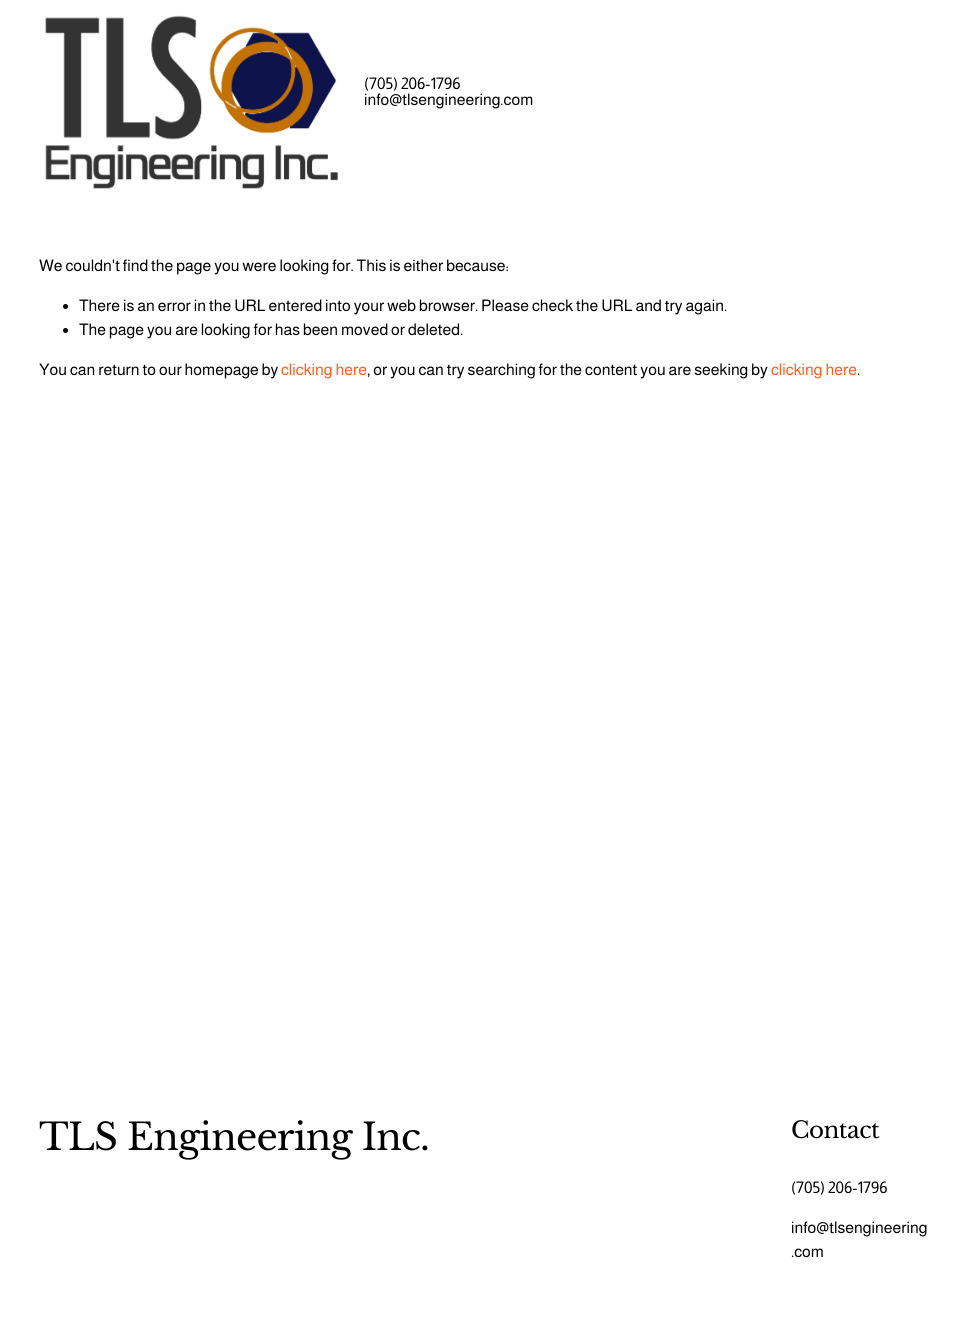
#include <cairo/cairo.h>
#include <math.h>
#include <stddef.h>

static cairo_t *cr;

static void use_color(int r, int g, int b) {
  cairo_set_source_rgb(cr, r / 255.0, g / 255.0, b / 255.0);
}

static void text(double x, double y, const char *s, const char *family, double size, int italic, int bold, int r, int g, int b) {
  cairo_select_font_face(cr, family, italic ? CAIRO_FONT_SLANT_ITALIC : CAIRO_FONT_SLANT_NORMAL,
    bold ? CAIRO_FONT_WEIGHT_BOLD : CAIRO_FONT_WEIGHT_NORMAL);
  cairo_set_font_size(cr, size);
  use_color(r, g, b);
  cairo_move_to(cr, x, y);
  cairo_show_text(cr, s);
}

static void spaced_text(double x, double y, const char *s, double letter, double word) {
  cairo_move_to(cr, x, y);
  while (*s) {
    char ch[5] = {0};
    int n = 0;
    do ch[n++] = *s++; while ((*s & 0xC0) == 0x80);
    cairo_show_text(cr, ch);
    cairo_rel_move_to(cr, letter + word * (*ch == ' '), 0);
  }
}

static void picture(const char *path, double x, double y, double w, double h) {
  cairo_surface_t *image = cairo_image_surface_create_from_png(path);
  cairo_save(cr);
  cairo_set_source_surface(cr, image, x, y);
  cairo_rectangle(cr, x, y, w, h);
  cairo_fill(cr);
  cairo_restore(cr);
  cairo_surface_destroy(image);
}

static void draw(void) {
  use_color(255, 255, 255);
  cairo_paint(cr);
  picture("img_01.png", 40, 15, 299, 174);
  use_color(0, 0, 0);
  cairo_arc(cr, 65.5, 306.5, 2.5, 0, 2 * M_PI);
  cairo_fill(cr);
  cairo_arc(cr, 65.5, 330.5, 2.5, 0, 2 * M_PI);
  cairo_fill(cr);
  text(364, 89, "(705) 206-1796", "Almarai", 16, 0, 0, 0, 0, 0);
  text(364, 105, "info@tlsengineering.com", "Almarai", 16, 0, 0, 0, 0, 0);
  text(39, 271, "We couldn't find the page you were looking for. This is either because:", "Almarai", 16, 0, 0, 0, 0, 0);
  text(79, 311, "There is an error in the URL entered into your web browser. Please check the URL and try again.", "Almarai", 16, 0, 0, 0, 0, 0);
  text(79, 335, "The page you are looking for has been moved or deleted.", "Almarai", 16, 0, 0, 0, 0, 0);
  text(39, 375, "You can return to our homepage by", "Almarai", 16, 0, 0, 0, 0, 0);
  text(281, 375, "clicking here", "Almarai", 16, 0, 0, 255, 94, 26);
  text(367, 375, ", or you can try searching for the content you are seeking by", "Almarai", 16, 0, 0, 0, 0, 0);
  text(771, 375, "clicking here", "Almarai", 16, 0, 0, 255, 94, 26);
  text(857, 375, ".", "Almarai", 16, 0, 0, 0, 0, 0);
  cairo_select_font_face(cr, "Libre Baskerville", CAIRO_FONT_SLANT_NORMAL, CAIRO_FONT_WEIGHT_NORMAL);
  cairo_set_font_size(cr, 37);
  spaced_text(39, 1150, "TLS Engineering Inc.", -0.75, 0);
  cairo_set_font_size(cr, 23);
  spaced_text(791, 1138, "Contact", -0.5, 0);
  text(791, 1193, "(705) 206-1796", "Almarai", 16, 0, 0, 0, 0, 0);
  text(791, 1233, "info@tlsengineering", "Almarai", 16, 0, 0, 0, 0, 0);
  text(791, 1257, ".com", "Almarai", 16, 0, 0, 0, 0, 0);
}

int main(void) {
  cairo_surface_t *surface = cairo_image_surface_create(CAIRO_FORMAT_RGB24, 969, 1324);
  cr = cairo_create(surface);
  cairo_font_options_t *options = cairo_font_options_create();
  cairo_font_options_set_hint_metrics(options, CAIRO_HINT_METRICS_OFF);
  cairo_font_options_set_hint_style(options, CAIRO_HINT_STYLE_NONE);
  cairo_set_font_options(cr, options);
  cairo_set_miter_limit(cr, 4);
  draw();
  cairo_surface_write_to_png(surface, "out.png");
  cairo_font_options_destroy(options);
  cairo_destroy(cr);
  cairo_surface_destroy(surface);
  return 0;
}
